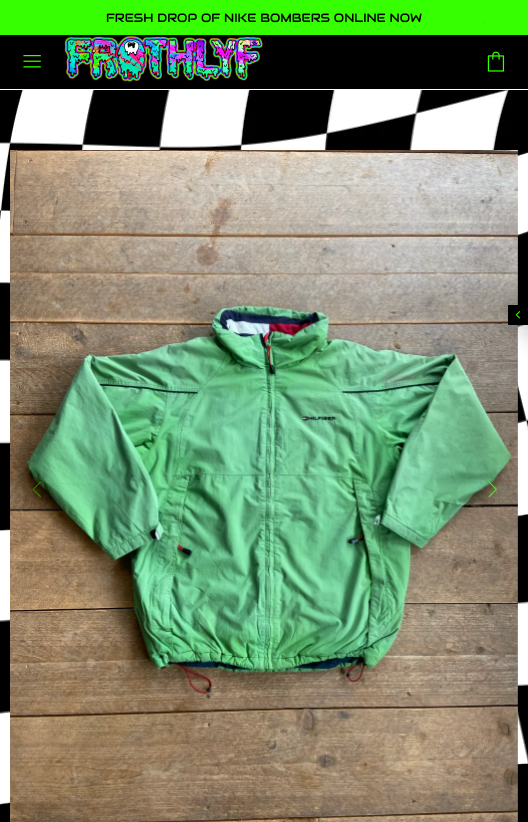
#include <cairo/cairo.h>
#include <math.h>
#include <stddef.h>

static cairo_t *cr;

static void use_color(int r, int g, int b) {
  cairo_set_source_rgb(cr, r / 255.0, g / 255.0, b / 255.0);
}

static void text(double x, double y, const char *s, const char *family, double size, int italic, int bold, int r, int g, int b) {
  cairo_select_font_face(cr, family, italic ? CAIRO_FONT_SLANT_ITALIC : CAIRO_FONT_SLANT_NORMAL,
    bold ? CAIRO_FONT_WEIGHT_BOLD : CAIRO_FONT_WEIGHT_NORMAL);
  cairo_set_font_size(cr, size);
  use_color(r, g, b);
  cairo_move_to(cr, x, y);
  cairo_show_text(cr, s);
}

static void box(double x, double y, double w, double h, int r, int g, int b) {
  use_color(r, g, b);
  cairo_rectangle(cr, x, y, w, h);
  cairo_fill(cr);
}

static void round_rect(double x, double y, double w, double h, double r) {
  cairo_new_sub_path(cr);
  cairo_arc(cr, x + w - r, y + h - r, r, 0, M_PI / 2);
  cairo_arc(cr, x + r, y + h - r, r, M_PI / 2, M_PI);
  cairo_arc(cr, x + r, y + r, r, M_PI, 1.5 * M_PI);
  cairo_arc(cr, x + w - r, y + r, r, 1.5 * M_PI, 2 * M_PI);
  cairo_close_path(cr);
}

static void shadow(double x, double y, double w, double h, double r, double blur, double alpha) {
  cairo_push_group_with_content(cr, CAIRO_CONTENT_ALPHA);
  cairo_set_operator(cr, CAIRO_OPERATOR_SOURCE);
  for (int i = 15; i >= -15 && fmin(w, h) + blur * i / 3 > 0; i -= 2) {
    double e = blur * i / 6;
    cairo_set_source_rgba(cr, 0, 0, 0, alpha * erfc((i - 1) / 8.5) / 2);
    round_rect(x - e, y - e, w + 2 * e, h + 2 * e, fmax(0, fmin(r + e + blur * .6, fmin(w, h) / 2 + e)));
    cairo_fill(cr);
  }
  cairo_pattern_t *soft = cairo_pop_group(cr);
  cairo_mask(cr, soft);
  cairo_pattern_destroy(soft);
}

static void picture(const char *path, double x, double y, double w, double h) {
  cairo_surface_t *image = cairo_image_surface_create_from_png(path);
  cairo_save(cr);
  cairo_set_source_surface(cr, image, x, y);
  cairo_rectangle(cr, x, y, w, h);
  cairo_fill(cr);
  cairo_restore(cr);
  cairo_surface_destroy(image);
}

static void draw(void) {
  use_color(0, 0, 0);
  cairo_paint(cr);
  box(0, 0, 528, 35, 53, 255, 0);
  picture("img_01.png", 482, 21, 2, 3);
  picture("img_02.png", 23, 55, 18, 13);
  picture("img_03.png", 64, 35, 200, 47);
  picture("img_04.png", 487, 51, 18, 21);
  box(0, 89, 528, 1, 255, 255, 255);
  picture("img_05.png", 0, 90, 528, 732);
  picture("img_06.png", 10, 150, 508, 672);
  picture("img_07.png", 32, 481, 9, 17);
  picture("img_08.png", 488, 481, 9, 17);
  use_color(0, 0, 0);
  shadow(528, 305, 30, 35, 0, 10, 0.15);
  shadow(508, 305, 20, 20, 0, 10, 0.15);
  box(508, 305, 20, 20, 0, 0, 0);
  picture("img_09.png", 515, 311, 5, 8);
  text(106, 22, "FRESH DROP OF NIKE BOMBERS ONLINE NOW", "Audiowide", 12, 0, 0, 0, 0, 0);
}

int main(void) {
  cairo_surface_t *surface = cairo_image_surface_create(CAIRO_FORMAT_RGB24, 528, 822);
  cr = cairo_create(surface);
  cairo_font_options_t *options = cairo_font_options_create();
  cairo_font_options_set_hint_metrics(options, CAIRO_HINT_METRICS_OFF);
  cairo_font_options_set_hint_style(options, CAIRO_HINT_STYLE_NONE);
  cairo_set_font_options(cr, options);
  cairo_set_miter_limit(cr, 4);
  draw();
  cairo_surface_write_to_png(surface, "out.png");
  cairo_font_options_destroy(options);
  cairo_destroy(cr);
  cairo_surface_destroy(surface);
  return 0;
}
